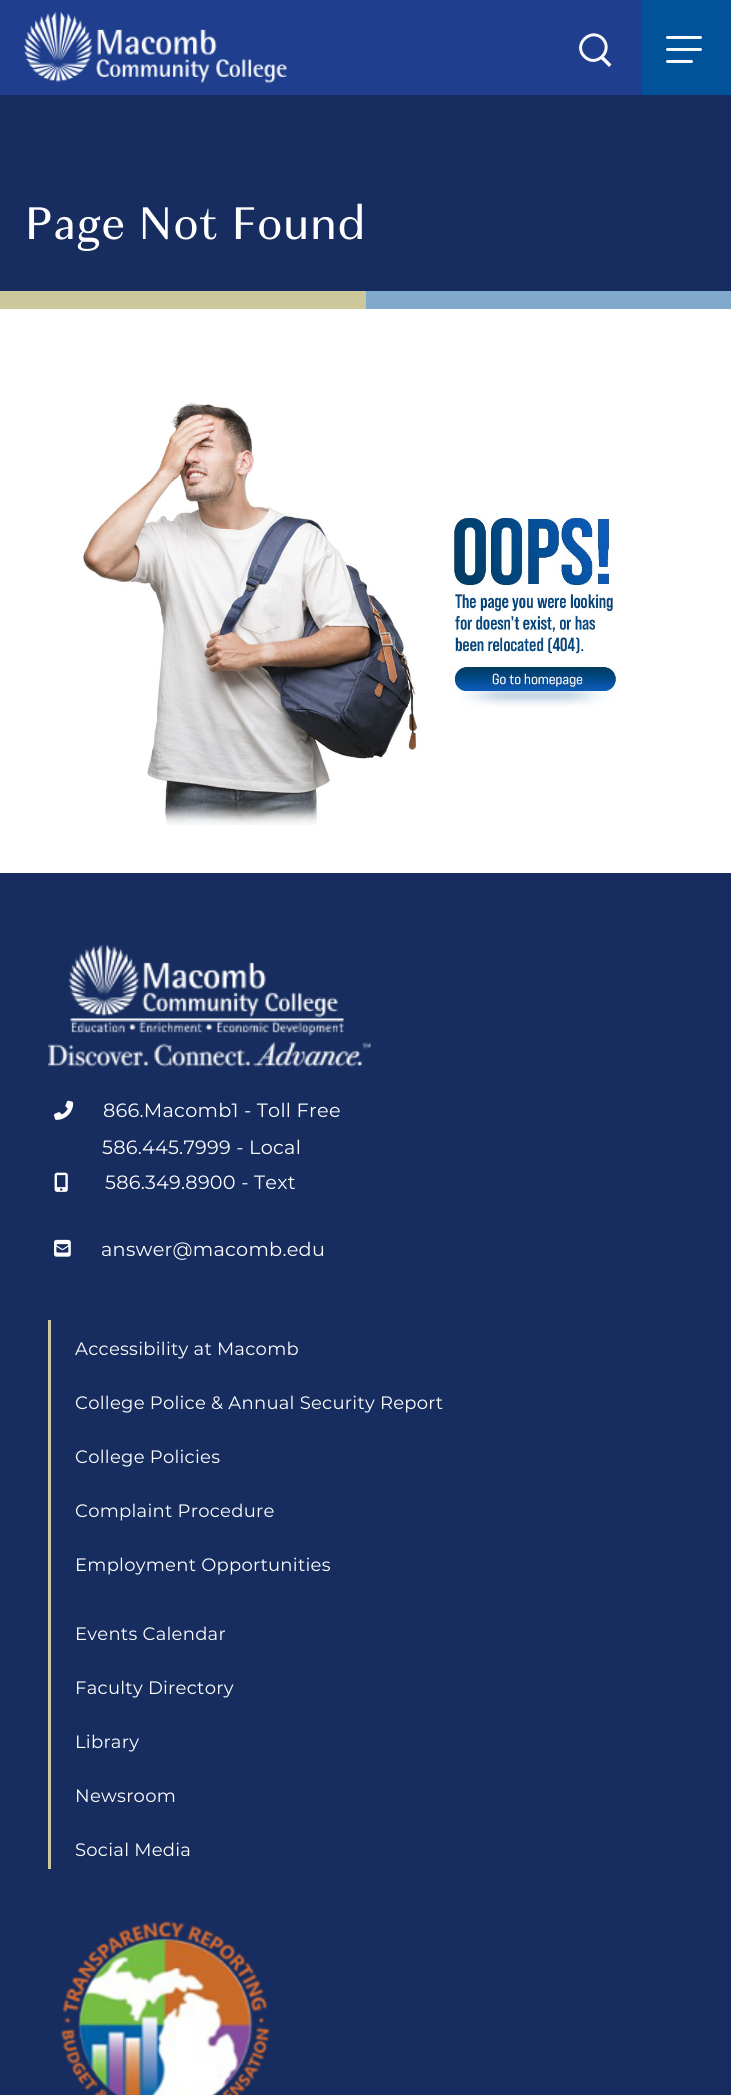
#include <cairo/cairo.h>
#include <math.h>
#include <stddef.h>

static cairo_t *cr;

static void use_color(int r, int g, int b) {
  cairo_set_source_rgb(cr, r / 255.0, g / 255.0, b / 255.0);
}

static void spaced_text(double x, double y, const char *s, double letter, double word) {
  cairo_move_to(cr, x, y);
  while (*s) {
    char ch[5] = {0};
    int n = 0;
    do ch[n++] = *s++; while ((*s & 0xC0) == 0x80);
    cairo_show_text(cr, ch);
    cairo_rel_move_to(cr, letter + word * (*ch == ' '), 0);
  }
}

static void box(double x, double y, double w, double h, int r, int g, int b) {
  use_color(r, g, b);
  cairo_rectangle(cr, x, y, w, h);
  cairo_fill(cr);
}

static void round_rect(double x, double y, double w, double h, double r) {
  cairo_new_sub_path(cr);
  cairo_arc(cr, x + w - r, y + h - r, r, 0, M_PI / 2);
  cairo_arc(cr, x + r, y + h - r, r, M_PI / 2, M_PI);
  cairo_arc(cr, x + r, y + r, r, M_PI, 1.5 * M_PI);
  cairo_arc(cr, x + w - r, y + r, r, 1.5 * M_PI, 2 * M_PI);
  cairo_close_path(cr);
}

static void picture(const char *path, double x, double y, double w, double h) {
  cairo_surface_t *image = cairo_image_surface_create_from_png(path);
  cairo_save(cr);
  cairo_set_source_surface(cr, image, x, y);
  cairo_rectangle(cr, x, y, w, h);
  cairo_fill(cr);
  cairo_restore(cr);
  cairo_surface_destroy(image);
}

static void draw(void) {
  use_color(255, 255, 255);
  cairo_paint(cr);
  picture("img_01.png", 0, 291, 731, 18);
  box(0, 0, 642, 95, 31, 63, 142);
  picture("img_02.png", 24, 12, 263, 71);
  use_color(248, 249, 250);
  cairo_new_path(cr);
  cairo_move_to(cr, 603, 56);
  cairo_line_to(cr, 611.5, 64.5);
  cairo_line_to(cr, 609, 67);
  cairo_line_to(cr, 600.5, 58.5);
  cairo_close_path(cr);
  cairo_fill(cr);
  cairo_new_path(cr);
  cairo_move_to(cr, 602.5, 38.5);
  cairo_curve_to(cr, 614, 50.5, 596, 68.5, 584.5, 56.5);
  cairo_curve_to(cr, 572.5, 45, 590.5, 27, 602.5, 38.5);
  cairo_close_path(cr);
  cairo_set_line_width(cr, 3);
  cairo_stroke(cr);
  box(642, 0, 89, 95, 1, 82, 153);
  use_color(248, 249, 250);
  round_rect(666, 48, 36, 3, 1.5);
  cairo_fill(cr);
  round_rect(666, 36, 36, 3, 1.5);
  cairo_fill(cr);
  round_rect(666, 60, 27, 3, 1.5);
  cairo_fill(cr);
  box(0, 95, 731, 196, 23, 45, 96);
  picture("img_03.png", 83, 402, 534, 423);
  box(0, 873, 731, 1222, 23, 45, 96);
  picture("img_04.png", 48, 945, 323, 122);
  picture("img_05.png", 54, 1100, 20, 20);
  picture("img_06.png", 54, 1172, 14, 20);
  picture("img_07.png", 54, 1239, 17, 18);
  box(48, 1320, 3, 549, 205, 200, 155);
  picture("img_08.png", 61, 1921, 210, 174);
  cairo_select_font_face(cr, "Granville", CAIRO_FONT_SLANT_NORMAL, CAIRO_FONT_WEIGHT_NORMAL);
  cairo_set_font_size(cr, 48);
  use_color(255, 255, 255);
  spaced_text(24, 239, "Page Not Found", 0.25, 0);
  cairo_select_font_face(cr, "Montserrat", CAIRO_FONT_SLANT_NORMAL, CAIRO_FONT_WEIGHT_NORMAL);
  cairo_set_font_size(cr, 19.25);
  spaced_text(103, 1117, "866.Macomb1 - Toll Free", 0.25, 0);
  spaced_text(102, 1154, "586.445.7999 - Local", 0.25, 0);
  spaced_text(105, 1189, "586.349.8900 - Text", 0.25, 0);
  spaced_text(101, 1256, "answer@macomb.edu", 0.25, 0);
  cairo_set_font_size(cr, 18);
  spaced_text(75, 1355, "Accessibility at Macomb", 0.25, 0);
  spaced_text(75, 1409, "College Police & Annual Security Report", 0.25, 0);
  spaced_text(75, 1463, "College Policies", 0.25, 0);
  spaced_text(75, 1517, "Complaint Procedure", 0.25, 0);
  spaced_text(75, 1571, "Employment Opportunities", 0.25, 0);
  spaced_text(75, 1640, "Events Calendar", 0.25, 0);
  spaced_text(75, 1694, "Faculty Directory", 0.25, 0);
  spaced_text(75, 1748, "Library", 0.25, 0);
  spaced_text(75, 1802, "Newsroom", 0.25, 0);
  spaced_text(75, 1856, "Social Media", 0.25, 0);
}

int main(void) {
  cairo_surface_t *surface = cairo_image_surface_create(CAIRO_FORMAT_RGB24, 731, 2095);
  cr = cairo_create(surface);
  cairo_font_options_t *options = cairo_font_options_create();
  cairo_font_options_set_hint_metrics(options, CAIRO_HINT_METRICS_OFF);
  cairo_font_options_set_hint_style(options, CAIRO_HINT_STYLE_NONE);
  cairo_set_font_options(cr, options);
  cairo_set_miter_limit(cr, 4);
  draw();
  cairo_surface_write_to_png(surface, "out.png");
  cairo_font_options_destroy(options);
  cairo_destroy(cr);
  cairo_surface_destroy(surface);
  return 0;
}
